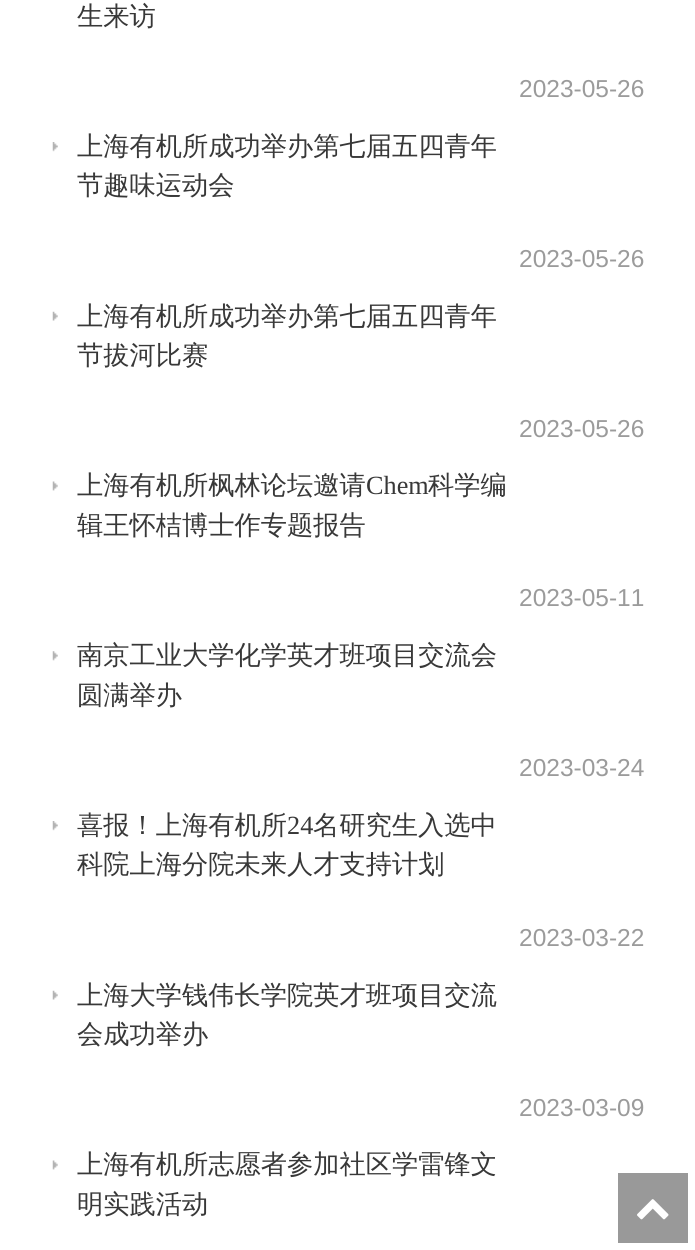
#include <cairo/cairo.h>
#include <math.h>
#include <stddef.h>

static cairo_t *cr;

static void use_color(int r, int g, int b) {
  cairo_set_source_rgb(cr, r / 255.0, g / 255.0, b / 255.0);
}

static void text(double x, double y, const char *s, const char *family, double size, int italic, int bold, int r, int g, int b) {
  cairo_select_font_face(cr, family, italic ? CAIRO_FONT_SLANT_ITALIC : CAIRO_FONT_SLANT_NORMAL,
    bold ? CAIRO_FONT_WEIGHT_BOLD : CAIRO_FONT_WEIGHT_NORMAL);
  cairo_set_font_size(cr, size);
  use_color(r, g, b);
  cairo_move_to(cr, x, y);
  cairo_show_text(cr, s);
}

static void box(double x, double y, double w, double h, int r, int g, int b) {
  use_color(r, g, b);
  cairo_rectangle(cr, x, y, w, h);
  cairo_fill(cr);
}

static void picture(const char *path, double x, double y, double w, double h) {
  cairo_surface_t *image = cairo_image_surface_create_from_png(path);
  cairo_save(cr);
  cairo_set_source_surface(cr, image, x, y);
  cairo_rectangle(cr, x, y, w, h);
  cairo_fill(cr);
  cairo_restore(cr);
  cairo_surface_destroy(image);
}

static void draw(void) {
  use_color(255, 255, 255);
  cairo_paint(cr);
  picture("img_01.png", 52, 142, 6, 10);
  picture("img_02.png", 52, 311, 6, 10);
  picture("img_03.png", 52, 481, 6, 10);
  picture("img_04.png", 52, 651, 6, 10);
  picture("img_01.png", 52, 821, 6, 10);
  picture("img_02.png", 52, 990, 6, 10);
  picture("img_03.png", 52, 1160, 6, 10);
  box(618, 1173, 70, 70, 153, 153, 153);
  picture("img_05.png", 637, 1199, 32, 21);
  text(77, 25, "生来访", "WenQuanYi Zen Hei Medium", 26.25, 0, 0, 56, 56, 56);
  text(519, 97, "2023-05-26", "Liberation Sans", 24.5, 0, 0, 155, 155, 155);
  text(77, 155, "上海有机所成功举办第七届五四青年", "WenQuanYi Zen Hei Medium", 26.25, 0, 0, 56, 56, 56);
  text(77, 194, "节趣味运动会", "WenQuanYi Zen Hei Medium", 26.25, 0, 0, 56, 56, 56);
  text(519, 267, "2023-05-26", "Liberation Sans", 24.5, 0, 0, 155, 155, 155);
  text(77, 325, "上海有机所成功举办第七届五四青年", "WenQuanYi Zen Hei Medium", 26.25, 0, 0, 56, 56, 56);
  text(77, 364, "节拔河比赛", "WenQuanYi Zen Hei Medium", 26.25, 0, 0, 56, 56, 56);
  text(519, 437, "2023-05-26", "Liberation Sans", 24.5, 0, 0, 155, 155, 155);
  text(77, 494, "上海有机所枫林论坛邀请", "WenQuanYi Zen Hei Medium", 26.25, 0, 0, 56, 56, 56);
  text(366, 494, "Chem", "Liberation Serif", 26.25, 0, 0, 56, 56, 56);
  text(428, 494, "科学编", "WenQuanYi Zen Hei Medium", 26.25, 0, 0, 56, 56, 56);
  text(77, 534, "辑王怀桔博士作专题报告", "WenQuanYi Zen Hei Medium", 26.25, 0, 0, 56, 56, 56);
  text(519, 606, "2023-05-11", "Liberation Sans", 24.5, 0, 0, 155, 155, 155);
  text(77, 664, "南京工业大学化学英才班项目交流会", "WenQuanYi Zen Hei Medium", 26.25, 0, 0, 56, 56, 56);
  text(77, 704, "圆满举办", "WenQuanYi Zen Hei Medium", 26.25, 0, 0, 56, 56, 56);
  text(519, 776, "2023-03-24", "Liberation Sans", 24.5, 0, 0, 155, 155, 155);
  text(77, 834, "喜报！上海有机所", "WenQuanYi Zen Hei Medium", 26.25, 0, 0, 56, 56, 56);
  text(287, 834, "24", "Liberation Serif", 26.25, 0, 0, 56, 56, 56);
  text(313, 834, "名研究生入选中", "WenQuanYi Zen Hei Medium", 26.25, 0, 0, 56, 56, 56);
  text(77, 873, "科院上海分院未来人才支持计划", "WenQuanYi Zen Hei Medium", 26.25, 0, 0, 56, 56, 56);
  text(519, 946, "2023-03-22", "Liberation Sans", 24.5, 0, 0, 155, 155, 155);
  text(77, 1004, "上海大学钱伟长学院英才班项目交流", "WenQuanYi Zen Hei Medium", 26.25, 0, 0, 56, 56, 56);
  text(77, 1043, "会成功举办", "WenQuanYi Zen Hei Medium", 26.25, 0, 0, 56, 56, 56);
  text(519, 1116, "2023-03-09", "Liberation Sans", 24.5, 0, 0, 155, 155, 155);
  text(77, 1173, "上海有机所志愿者参加社区学雷锋文", "WenQuanYi Zen Hei Medium", 26.25, 0, 0, 56, 56, 56);
  text(77, 1213, "明实践活动", "WenQuanYi Zen Hei Medium", 26.25, 0, 0, 56, 56, 56);
}

int main(void) {
  cairo_surface_t *surface = cairo_image_surface_create(CAIRO_FORMAT_RGB24, 695, 1250);
  cr = cairo_create(surface);
  cairo_font_options_t *options = cairo_font_options_create();
  cairo_font_options_set_hint_metrics(options, CAIRO_HINT_METRICS_OFF);
  cairo_font_options_set_hint_style(options, CAIRO_HINT_STYLE_NONE);
  cairo_set_font_options(cr, options);
  cairo_set_miter_limit(cr, 4);
  draw();
  cairo_surface_write_to_png(surface, "out.png");
  cairo_font_options_destroy(options);
  cairo_destroy(cr);
  cairo_surface_destroy(surface);
  return 0;
}
